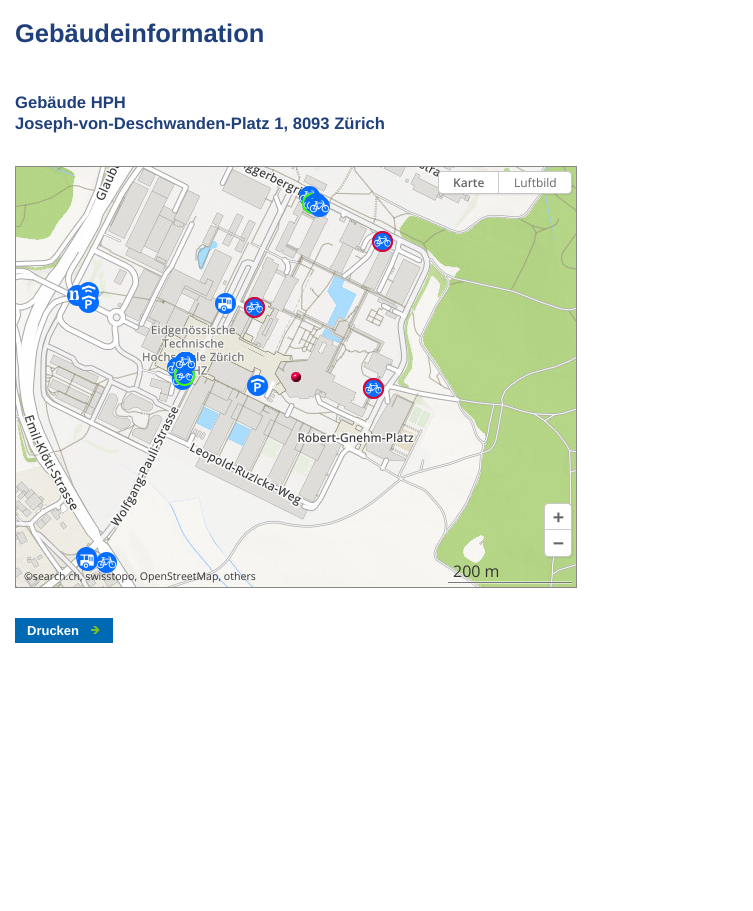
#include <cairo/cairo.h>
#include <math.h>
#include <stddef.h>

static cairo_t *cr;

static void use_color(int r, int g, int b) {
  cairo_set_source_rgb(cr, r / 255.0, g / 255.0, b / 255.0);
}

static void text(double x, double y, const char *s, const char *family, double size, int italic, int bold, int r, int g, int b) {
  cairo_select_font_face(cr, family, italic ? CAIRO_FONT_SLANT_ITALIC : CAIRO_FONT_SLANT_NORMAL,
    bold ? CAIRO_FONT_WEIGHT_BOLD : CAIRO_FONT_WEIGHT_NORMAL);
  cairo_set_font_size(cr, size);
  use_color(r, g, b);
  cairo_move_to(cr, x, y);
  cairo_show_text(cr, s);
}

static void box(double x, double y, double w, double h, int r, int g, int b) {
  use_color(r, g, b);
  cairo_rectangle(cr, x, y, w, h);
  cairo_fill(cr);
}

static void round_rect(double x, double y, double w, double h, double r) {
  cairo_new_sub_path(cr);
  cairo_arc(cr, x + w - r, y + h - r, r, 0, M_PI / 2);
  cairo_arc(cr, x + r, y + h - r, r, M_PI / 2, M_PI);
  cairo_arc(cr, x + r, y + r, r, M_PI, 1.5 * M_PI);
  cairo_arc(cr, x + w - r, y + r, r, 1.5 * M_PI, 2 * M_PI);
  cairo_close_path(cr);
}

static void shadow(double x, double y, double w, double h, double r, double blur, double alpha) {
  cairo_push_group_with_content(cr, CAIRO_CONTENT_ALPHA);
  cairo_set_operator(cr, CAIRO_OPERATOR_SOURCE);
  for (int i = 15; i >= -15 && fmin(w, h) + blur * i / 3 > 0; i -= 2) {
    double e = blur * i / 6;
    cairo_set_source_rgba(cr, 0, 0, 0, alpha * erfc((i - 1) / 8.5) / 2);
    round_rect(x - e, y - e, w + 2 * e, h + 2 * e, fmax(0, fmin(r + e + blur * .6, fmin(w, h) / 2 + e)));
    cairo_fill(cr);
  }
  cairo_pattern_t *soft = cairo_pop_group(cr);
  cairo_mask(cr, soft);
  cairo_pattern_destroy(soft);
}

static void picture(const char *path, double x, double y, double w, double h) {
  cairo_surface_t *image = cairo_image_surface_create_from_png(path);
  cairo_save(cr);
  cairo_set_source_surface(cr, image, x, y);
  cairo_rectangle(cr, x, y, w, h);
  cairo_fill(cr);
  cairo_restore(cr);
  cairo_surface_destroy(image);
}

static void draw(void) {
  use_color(255, 255, 255);
  cairo_paint(cr);
  cairo_rectangle(cr, 15.5, 166.5, 561, 421);
  use_color(136, 136, 136);
  cairo_set_line_width(cr, 1);
  cairo_stroke(cr);
  picture("img_01.png", 16, 167, 11, 336);
  picture("img_02.png", 27, 167, 512, 336);
  picture("img_03.png", 539, 167, 37, 336);
  picture("img_04.png", 16, 503, 11, 84);
  picture("img_05.png", 27, 503, 512, 84);
  picture("img_06.png", 539, 503, 37, 84);
  picture("img_07.png", 23, 415, 4, 12);
  picture("img_08.png", 27, 167, 416, 336);
  picture("img_09.png", 65, 503, 236, 70);
  picture("img_10.png", 16, 583, 4, 4);
  picture("img_11.png", 291, 372, 10, 10);
  use_color(0, 0, 0);
  shadow(439, 172, 134, 23, 4, 0.5, 0.08);
  round_rect(438.5, 171.5, 133, 22, 3.5);
  use_color(200, 200, 200);
  cairo_stroke(cr);
  use_color(255, 255, 255);
  cairo_new_path(cr);
  cairo_move_to(cr, 442, 172);
  cairo_line_to(cr, 499, 172);
  cairo_line_to(cr, 499, 193);
  cairo_line_to(cr, 442, 193);
  cairo_curve_to(cr, 440.5, 193, 439, 191.5, 439, 190);
  cairo_line_to(cr, 439, 175);
  cairo_curve_to(cr, 439, 173.5, 440.5, 172, 442, 172);
  cairo_close_path(cr);
  cairo_fill(cr);
  box(498, 172, 1, 21, 204, 204, 204);
  use_color(255, 255, 255);
  cairo_new_path(cr);
  cairo_move_to(cr, 499, 172);
  cairo_line_to(cr, 568, 172);
  cairo_curve_to(cr, 569.5, 172, 571, 173.5, 571, 175);
  cairo_line_to(cr, 571, 190);
  cairo_curve_to(cr, 571, 191.5, 569.5, 193, 568, 193);
  cairo_line_to(cr, 499, 193);
  cairo_close_path(cr);
  cairo_fill(cr);
  use_color(0, 0, 0);
  shadow(545, 504, 28, 54, 4, 0.5, 0.08);
  round_rect(544.5, 503.5, 27, 53, 3.5);
  use_color(200, 200, 200);
  cairo_stroke(cr);
  use_color(255, 255, 255);
  cairo_new_path(cr);
  cairo_move_to(cr, 548, 504);
  cairo_line_to(cr, 568, 504);
  cairo_curve_to(cr, 569.5, 504, 571, 505.5, 571, 507);
  cairo_line_to(cr, 571, 530);
  cairo_line_to(cr, 545, 530);
  cairo_line_to(cr, 545, 507);
  cairo_curve_to(cr, 545, 505.5, 546.5, 504, 548, 504);
  cairo_close_path(cr);
  cairo_fill(cr);
  box(545, 529, 26, 1, 204, 204, 204);
  use_color(255, 255, 255);
  cairo_new_path(cr);
  cairo_move_to(cr, 545, 530);
  cairo_line_to(cr, 571, 530);
  cairo_line_to(cr, 571, 553);
  cairo_curve_to(cr, 571, 554.5, 569.5, 556, 568, 556);
  cairo_line_to(cr, 548, 556);
  cairo_curve_to(cr, 546.5, 556, 545, 554.5, 545, 553);
  cairo_close_path(cr);
  cairo_fill(cr);
  cairo_set_source_rgba(cr, 1, 1, 1, 0.5);
  cairo_rectangle(cr, 448, 583, 124, 1);
  cairo_fill(cr);
  cairo_rectangle(cr, 448, 581, 124, 1);
  cairo_fill(cr);
  box(448, 582, 124, 1, 119, 119, 119);
  box(15, 618, 98, 25, 0, 105, 180);
  picture("img_12.png", 91, 626, 9, 8);
  text(15, 42, "Gebäudeinformation", "Liberation Sans", 25.5, 0, 1, 31, 64, 122);
  text(15, 108, "Gebäude HPH", "Liberation Sans", 16.6, 0, 1, 31, 64, 122);
  text(15, 129, "Joseph-von-Deschwanden-Platz 1, 8093 Zürich", "Liberation Sans", 16.6, 0, 1, 31, 64, 122);
  text(453, 187, "Karte", "Open Sans SemiBold", 12, 0, 0, 102, 102, 102);
  text(514, 187, "Luftbild", "Open Sans", 12, 0, 0, 102, 102, 102);
  text(24, 580, "©search.ch, swisstopo, OpenStreetMap, others", "Open Sans", 10.6, 0, 0, 51, 51, 51);
  text(553, 523, "+", "DejaVu Sans Mono", 18, 0, 1, 102, 102, 102);
  text(553, 549, "−", "DejaVu Sans Mono", 18, 0, 1, 102, 102, 102);
  text(453, 577, "200 m", "Open Sans", 16, 0, 0, 51, 51, 51);
  text(27, 635, "Drucken", "Liberation Sans", 13, 0, 1, 255, 255, 255);
}

int main(void) {
  cairo_surface_t *surface = cairo_image_surface_create(CAIRO_FORMAT_RGB24, 753, 911);
  cr = cairo_create(surface);
  cairo_font_options_t *options = cairo_font_options_create();
  cairo_font_options_set_hint_metrics(options, CAIRO_HINT_METRICS_OFF);
  cairo_font_options_set_hint_style(options, CAIRO_HINT_STYLE_NONE);
  cairo_set_font_options(cr, options);
  cairo_set_miter_limit(cr, 4);
  draw();
  cairo_surface_write_to_png(surface, "out.png");
  cairo_font_options_destroy(options);
  cairo_destroy(cr);
  cairo_surface_destroy(surface);
  return 0;
}
